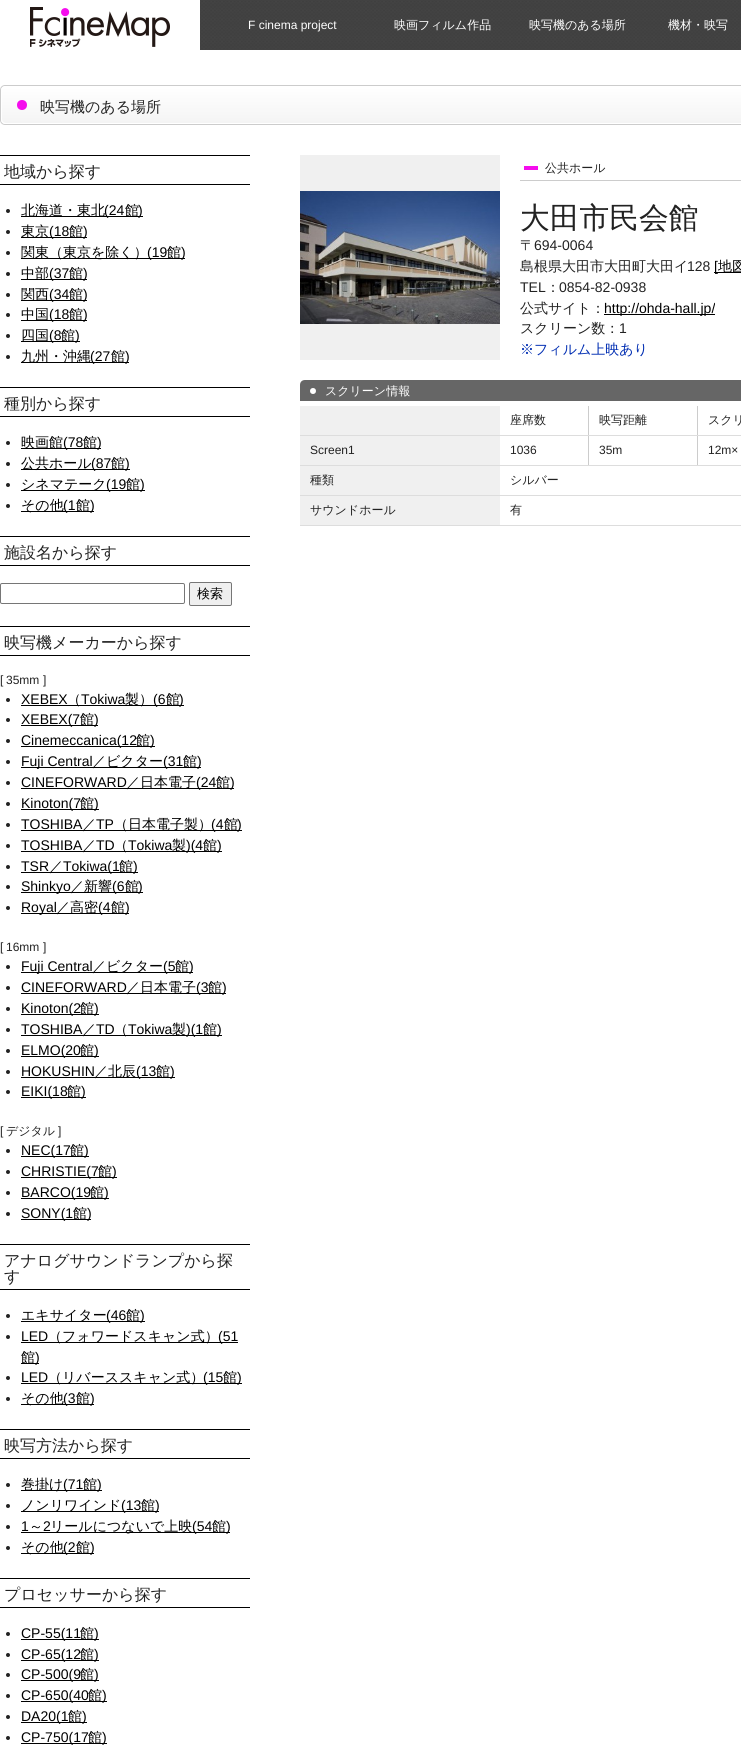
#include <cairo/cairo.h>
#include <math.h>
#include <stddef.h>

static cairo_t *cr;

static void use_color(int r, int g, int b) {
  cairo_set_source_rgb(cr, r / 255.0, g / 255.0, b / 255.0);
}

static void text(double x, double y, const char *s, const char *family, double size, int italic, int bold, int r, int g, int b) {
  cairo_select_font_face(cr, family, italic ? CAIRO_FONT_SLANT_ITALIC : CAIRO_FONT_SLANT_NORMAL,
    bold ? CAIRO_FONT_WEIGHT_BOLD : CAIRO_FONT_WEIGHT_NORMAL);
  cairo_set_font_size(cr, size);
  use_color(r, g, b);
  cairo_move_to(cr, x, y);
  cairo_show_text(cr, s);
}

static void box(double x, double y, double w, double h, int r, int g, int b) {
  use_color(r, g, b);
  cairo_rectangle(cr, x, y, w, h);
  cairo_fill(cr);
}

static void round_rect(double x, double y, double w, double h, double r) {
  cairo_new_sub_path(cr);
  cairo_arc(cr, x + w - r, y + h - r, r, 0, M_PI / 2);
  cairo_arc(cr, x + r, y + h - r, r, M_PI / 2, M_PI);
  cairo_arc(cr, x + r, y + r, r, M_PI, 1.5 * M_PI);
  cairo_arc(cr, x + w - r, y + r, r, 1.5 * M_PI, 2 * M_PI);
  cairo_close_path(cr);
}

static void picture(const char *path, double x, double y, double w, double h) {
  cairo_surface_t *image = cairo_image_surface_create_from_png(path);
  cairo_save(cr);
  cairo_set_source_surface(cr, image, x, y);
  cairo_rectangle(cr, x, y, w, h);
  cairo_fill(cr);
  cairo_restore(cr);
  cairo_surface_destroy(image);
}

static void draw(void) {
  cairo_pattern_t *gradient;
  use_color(255, 255, 255);
  cairo_paint(cr);
  picture("img_01.png", 200, 0, 541, 50);
  picture("img_02.png", 30, 7, 140, 40);
  round_rect(0.5, 85.5, 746, 39, 4.5);
  use_color(204, 204, 204);
  cairo_set_line_width(cr, 1);
  cairo_stroke(cr);
  cairo_save(cr);
  round_rect(1, 86, 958, 38, 5);
  cairo_clip(cr);
  gradient = cairo_pattern_create_linear(2, 87, 2, 123);
  cairo_pattern_add_color_stop_rgba(gradient, 0, 1, 1, 1, 1);
  cairo_pattern_add_color_stop_rgba(gradient, 1, 0.957, 0.957, 0.957, 1);
  cairo_set_source(cr, gradient);
  cairo_pattern_destroy(gradient);
  cairo_rectangle(cr, 1, 87, 740, 36);
  cairo_fill(cr);
  cairo_restore(cr);
  round_rect(1.5, 86.5, 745, 37, 4.5);
  use_color(255, 255, 255);
  cairo_stroke(cr);
  use_color(245, 13, 237);
  cairo_arc(cr, 22, 105, 5, 0, 2 * M_PI);
  cairo_fill(cr);
  box(0, 155, 250, 1, 0, 0, 0);
  box(0, 184, 250, 1, 0, 0, 0);
  use_color(34, 34, 34);
  cairo_arc(cr, 8, 211, 2, 0, 2 * M_PI);
  cairo_fill(cr);
  box(21, 216, 122, 1, 0, 0, 0);
  use_color(34, 34, 34);
  cairo_arc(cr, 8, 232, 2, 0, 2 * M_PI);
  cairo_fill(cr);
  box(21, 237, 66, 1, 0, 0, 0);
  use_color(34, 34, 34);
  cairo_arc(cr, 8, 253, 2, 0, 2 * M_PI);
  cairo_fill(cr);
  box(21, 258, 164, 1, 0, 0, 0);
  use_color(34, 34, 34);
  cairo_arc(cr, 8, 274, 2, 0, 2 * M_PI);
  cairo_fill(cr);
  box(21, 279, 66, 1, 0, 0, 0);
  use_color(34, 34, 34);
  cairo_arc(cr, 8, 295, 2, 0, 2 * M_PI);
  cairo_fill(cr);
  box(21, 300, 66, 1, 0, 0, 0);
  use_color(34, 34, 34);
  cairo_arc(cr, 8, 315, 2, 0, 2 * M_PI);
  cairo_fill(cr);
  box(21, 320, 66, 1, 0, 0, 0);
  use_color(34, 34, 34);
  cairo_arc(cr, 8, 336, 2, 0, 2 * M_PI);
  cairo_fill(cr);
  box(21, 341, 59, 1, 0, 0, 0);
  use_color(34, 34, 34);
  cairo_arc(cr, 8, 357, 2, 0, 2 * M_PI);
  cairo_fill(cr);
  box(21, 362, 108, 1, 0, 0, 0);
  box(0, 387, 250, 1, 0, 0, 0);
  box(0, 416, 250, 1, 0, 0, 0);
  use_color(34, 34, 34);
  cairo_arc(cr, 8, 443, 2, 0, 2 * M_PI);
  cairo_fill(cr);
  box(21, 448, 80, 1, 0, 0, 0);
  use_color(34, 34, 34);
  cairo_arc(cr, 8, 464, 2, 0, 2 * M_PI);
  cairo_fill(cr);
  box(21, 469, 109, 1, 0, 0, 0);
  use_color(34, 34, 34);
  cairo_arc(cr, 8, 485, 2, 0, 2 * M_PI);
  cairo_fill(cr);
  box(21, 490, 124, 1, 0, 0, 0);
  use_color(34, 34, 34);
  cairo_arc(cr, 8, 506, 2, 0, 2 * M_PI);
  cairo_fill(cr);
  box(21, 511, 73, 1, 0, 0, 0);
  box(0, 536, 250, 1, 0, 0, 0);
  box(0, 565, 250, 1, 0, 0, 0);
  round_rect(0.5, 583.5, 184, 20, 1.5);
  use_color(118, 118, 118);
  cairo_stroke(cr);
  use_color(239, 239, 239);
  round_rect(189.5, 582.5, 42, 23, 1.5);
  cairo_fill_preserve(cr);
  use_color(118, 118, 118);
  cairo_stroke(cr);
  box(0, 626, 250, 1, 0, 0, 0);
  box(0, 655, 250, 1, 0, 0, 0);
  use_color(34, 34, 34);
  cairo_arc(cr, 8, 700, 2, 0, 2 * M_PI);
  cairo_fill(cr);
  box(21, 705, 163, 1, 0, 0, 0);
  use_color(34, 34, 34);
  cairo_arc(cr, 8, 720, 2, 0, 2 * M_PI);
  cairo_fill(cr);
  box(21, 725, 77, 1, 0, 0, 0);
  use_color(34, 34, 34);
  cairo_arc(cr, 8, 741, 2, 0, 2 * M_PI);
  cairo_fill(cr);
  box(21, 746, 134, 1, 0, 0, 0);
  use_color(34, 34, 34);
  cairo_arc(cr, 8, 762, 2, 0, 2 * M_PI);
  cairo_fill(cr);
  box(21, 767, 180, 1, 0, 0, 0);
  use_color(34, 34, 34);
  cairo_arc(cr, 8, 783, 2, 0, 2 * M_PI);
  cairo_fill(cr);
  box(21, 788, 213, 1, 0, 0, 0);
  use_color(34, 34, 34);
  cairo_arc(cr, 8, 804, 2, 0, 2 * M_PI);
  cairo_fill(cr);
  box(21, 809, 78, 1, 0, 0, 0);
  use_color(34, 34, 34);
  cairo_arc(cr, 8, 825, 2, 0, 2 * M_PI);
  cairo_fill(cr);
  box(21, 830, 221, 1, 0, 0, 0);
  use_color(34, 34, 34);
  cairo_arc(cr, 8, 846, 2, 0, 2 * M_PI);
  cairo_fill(cr);
  box(21, 851, 201, 1, 0, 0, 0);
  use_color(34, 34, 34);
  cairo_arc(cr, 8, 867, 2, 0, 2 * M_PI);
  cairo_fill(cr);
  box(21, 872, 117, 1, 0, 0, 0);
  use_color(34, 34, 34);
  cairo_arc(cr, 8, 887, 2, 0, 2 * M_PI);
  cairo_fill(cr);
  box(21, 892, 122, 1, 0, 0, 0);
  use_color(34, 34, 34);
  cairo_arc(cr, 8, 908, 2, 0, 2 * M_PI);
  cairo_fill(cr);
  box(21, 913, 108, 1, 0, 0, 0);
  use_color(34, 34, 34);
  cairo_arc(cr, 8, 967, 2, 0, 2 * M_PI);
  cairo_fill(cr);
  box(21, 972, 172, 1, 0, 0, 0);
  use_color(34, 34, 34);
  cairo_arc(cr, 8, 988, 2, 0, 2 * M_PI);
  cairo_fill(cr);
  box(21, 993, 205, 1, 0, 0, 0);
  use_color(34, 34, 34);
  cairo_arc(cr, 8, 1009, 2, 0, 2 * M_PI);
  cairo_fill(cr);
  box(21, 1014, 78, 1, 0, 0, 0);
  use_color(34, 34, 34);
  cairo_arc(cr, 8, 1030, 2, 0, 2 * M_PI);
  cairo_fill(cr);
  box(21, 1035, 201, 1, 0, 0, 0);
  use_color(34, 34, 34);
  cairo_arc(cr, 8, 1051, 2, 0, 2 * M_PI);
  cairo_fill(cr);
  box(21, 1056, 78, 1, 0, 0, 0);
  use_color(34, 34, 34);
  cairo_arc(cr, 8, 1072, 2, 0, 2 * M_PI);
  cairo_fill(cr);
  box(21, 1077, 154, 1, 0, 0, 0);
  use_color(34, 34, 34);
  cairo_arc(cr, 8, 1092, 2, 0, 2 * M_PI);
  cairo_fill(cr);
  box(21, 1097, 65, 1, 0, 0, 0);
  use_color(34, 34, 34);
  cairo_arc(cr, 8, 1151, 2, 0, 2 * M_PI);
  cairo_fill(cr);
  box(21, 1156, 68, 1, 0, 0, 0);
  use_color(34, 34, 34);
  cairo_arc(cr, 8, 1172, 2, 0, 2 * M_PI);
  cairo_fill(cr);
  box(21, 1177, 96, 1, 0, 0, 0);
  use_color(34, 34, 34);
  cairo_arc(cr, 8, 1193, 2, 0, 2 * M_PI);
  cairo_fill(cr);
  box(21, 1198, 88, 1, 0, 0, 0);
  use_color(34, 34, 34);
  cairo_arc(cr, 8, 1214, 2, 0, 2 * M_PI);
  cairo_fill(cr);
  box(21, 1219, 70, 1, 0, 0, 0);
  box(0, 1244, 250, 1, 0, 0, 0);
  box(0, 1289, 250, 1, 0, 0, 0);
  use_color(34, 34, 34);
  cairo_arc(cr, 8, 1316, 2, 0, 2 * M_PI);
  cairo_fill(cr);
  box(21, 1321, 124, 1, 0, 0, 0);
  use_color(34, 34, 34);
  cairo_arc(cr, 8, 1337, 2, 0, 2 * M_PI);
  cairo_fill(cr);
  box(21, 1342, 217, 1, 0, 0, 0);
  box(21, 1363, 18, 1, 0, 0, 0);
  use_color(34, 34, 34);
  cairo_arc(cr, 8, 1378, 2, 0, 2 * M_PI);
  cairo_fill(cr);
  box(21, 1383, 221, 1, 0, 0, 0);
  use_color(34, 34, 34);
  cairo_arc(cr, 8, 1399, 2, 0, 2 * M_PI);
  cairo_fill(cr);
  box(21, 1404, 73, 1, 0, 0, 0);
  box(0, 1429, 250, 1, 0, 0, 0);
  box(0, 1458, 250, 1, 0, 0, 0);
  use_color(34, 34, 34);
  cairo_arc(cr, 8, 1485, 2, 0, 2 * M_PI);
  cairo_fill(cr);
  box(21, 1490, 81, 1, 0, 0, 0);
  use_color(34, 34, 34);
  cairo_arc(cr, 8, 1506, 2, 0, 2 * M_PI);
  cairo_fill(cr);
  box(21, 1511, 138, 1, 0, 0, 0);
  use_color(34, 34, 34);
  cairo_arc(cr, 8, 1527, 2, 0, 2 * M_PI);
  cairo_fill(cr);
  box(21, 1532, 209, 1, 0, 0, 0);
  use_color(34, 34, 34);
  cairo_arc(cr, 8, 1548, 2, 0, 2 * M_PI);
  cairo_fill(cr);
  box(21, 1553, 73, 1, 0, 0, 0);
  box(0, 1578, 250, 1, 0, 0, 0);
  box(0, 1607, 250, 1, 0, 0, 0);
  use_color(34, 34, 34);
  cairo_arc(cr, 8, 1634, 2, 0, 2 * M_PI);
  cairo_fill(cr);
  box(21, 1639, 78, 1, 0, 0, 0);
  use_color(34, 34, 34);
  cairo_arc(cr, 8, 1655, 2, 0, 2 * M_PI);
  cairo_fill(cr);
  box(21, 1660, 78, 1, 0, 0, 0);
  use_color(34, 34, 34);
  cairo_arc(cr, 8, 1675, 2, 0, 2 * M_PI);
  cairo_fill(cr);
  box(21, 1680, 78, 1, 0, 0, 0);
  use_color(34, 34, 34);
  cairo_arc(cr, 8, 1696, 2, 0, 2 * M_PI);
  cairo_fill(cr);
  box(21, 1701, 86, 1, 0, 0, 0);
  use_color(34, 34, 34);
  cairo_arc(cr, 8, 1717, 2, 0, 2 * M_PI);
  cairo_fill(cr);
  box(21, 1722, 66, 1, 0, 0, 0);
  use_color(34, 34, 34);
  cairo_arc(cr, 8, 1738, 2, 0, 2 * M_PI);
  cairo_fill(cr);
  box(21, 1743, 86, 1, 0, 0, 0);
  box(300, 155, 200, 205, 240, 240, 240);
  picture("img_03.png", 300, 191, 200, 133);
  box(520, 180, 221, 1, 204, 204, 204);
  box(524, 166, 14, 4, 245, 13, 237);
  box(714, 272, 27, 1, 0, 0, 0);
  box(604, 314, 111, 1, 0, 0, 0);
  use_color(102, 102, 102);
  cairo_new_path(cr);
  cairo_move_to(cr, 305, 380);
  cairo_line_to(cr, 741, 380);
  cairo_curve_to(cr, 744, 380, 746, 382, 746, 385);
  cairo_line_to(cr, 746, 401);
  cairo_line_to(cr, 300, 401);
  cairo_line_to(cr, 300, 385);
  cairo_curve_to(cr, 300, 382, 302, 380, 305, 380);
  cairo_close_path(cr);
  cairo_fill(cr);
  use_color(255, 255, 255);
  cairo_arc(cr, 313, 391, 3, 0, 2 * M_PI);
  cairo_fill(cr);
  box(300, 406, 200, 29, 240, 240, 240);
  box(697, 465, 44, 1, 221, 221, 221);
  box(697, 435, 1, 31, 204, 204, 204);
  box(697, 435, 44, 1, 221, 221, 221);
  box(697, 406, 1, 30, 204, 204, 204);
  box(588, 465, 110, 1, 221, 221, 221);
  box(588, 435, 1, 31, 204, 204, 204);
  box(588, 435, 110, 1, 221, 221, 221);
  box(588, 406, 1, 30, 204, 204, 204);
  box(300, 435, 289, 1, 221, 221, 221);
  box(300, 436, 200, 29, 240, 240, 240);
  box(300, 465, 289, 1, 221, 221, 221);
  box(300, 466, 200, 29, 240, 240, 240);
  box(300, 495, 441, 1, 221, 221, 221);
  box(300, 496, 200, 29, 240, 240, 240);
  box(300, 525, 441, 1, 221, 221, 221);
  text(248, 29, "F cinema project", "Liberation Sans", 12, 0, 0, 255, 255, 255);
  text(394, 29, "映画フィルム作品", "WenQuanYi Zen Hei Medium", 12, 0, 0, 255, 255, 255);
  text(529, 29, "映写機のある場所", "WenQuanYi Zen Hei Medium", 12, 0, 0, 255, 255, 255);
  text(668, 29, "機材・映写", "WenQuanYi Zen Hei Medium", 12, 0, 0, 255, 255, 255);
  text(40, 112, "映写機のある場所", "WenQuanYi Zen Hei Medium", 15, 0, 0, 34, 34, 34);
  text(4, 177, "地域から探す", "WenQuanYi Zen Hei Medium", 16, 0, 0, 34, 34, 34);
  text(21, 215, "北海道・東北", "WenQuanYi Zen Hei Medium", 14, 0, 0, 0, 0, 0);
  text(104, 215, "(24", "Liberation Sans", 14, 0, 0, 0, 0, 0);
  text(125, 215, "館", "WenQuanYi Zen Hei Medium", 14, 0, 0, 0, 0, 0);
  text(138, 215, ")", "Liberation Sans", 14, 0, 0, 0, 0, 0);
  text(21, 236, "東京", "WenQuanYi Zen Hei Medium", 14, 0, 0, 0, 0, 0);
  text(49, 236, "(18", "Liberation Sans", 14, 0, 0, 0, 0, 0);
  text(69, 236, "館", "WenQuanYi Zen Hei Medium", 14, 0, 0, 0, 0, 0);
  text(83, 236, ")", "Liberation Sans", 14, 0, 0, 0, 0, 0);
  text(21, 257, "関東（東京を除く）", "WenQuanYi Zen Hei Medium", 14, 0, 0, 0, 0, 0);
  text(147, 257, "(19", "Liberation Sans", 14, 0, 0, 0, 0, 0);
  text(167, 257, "館", "WenQuanYi Zen Hei Medium", 14, 0, 0, 0, 0, 0);
  text(181, 257, ")", "Liberation Sans", 14, 0, 0, 0, 0, 0);
  text(21, 278, "中部", "WenQuanYi Zen Hei Medium", 14, 0, 0, 0, 0, 0);
  text(49, 278, "(37", "Liberation Sans", 14, 0, 0, 0, 0, 0);
  text(69, 278, "館", "WenQuanYi Zen Hei Medium", 14, 0, 0, 0, 0, 0);
  text(83, 278, ")", "Liberation Sans", 14, 0, 0, 0, 0, 0);
  text(21, 299, "関西", "WenQuanYi Zen Hei Medium", 14, 0, 0, 0, 0, 0);
  text(49, 299, "(34", "Liberation Sans", 14, 0, 0, 0, 0, 0);
  text(69, 299, "館", "WenQuanYi Zen Hei Medium", 14, 0, 0, 0, 0, 0);
  text(83, 299, ")", "Liberation Sans", 14, 0, 0, 0, 0, 0);
  text(21, 319, "中国", "WenQuanYi Zen Hei Medium", 14, 0, 0, 0, 0, 0);
  text(49, 319, "(18", "Liberation Sans", 14, 0, 0, 0, 0, 0);
  text(69, 319, "館", "WenQuanYi Zen Hei Medium", 14, 0, 0, 0, 0, 0);
  text(83, 319, ")", "Liberation Sans", 14, 0, 0, 0, 0, 0);
  text(21, 340, "四国", "WenQuanYi Zen Hei Medium", 14, 0, 0, 0, 0, 0);
  text(49, 340, "(8", "Liberation Sans", 14, 0, 0, 0, 0, 0);
  text(61, 340, "館", "WenQuanYi Zen Hei Medium", 14, 0, 0, 0, 0, 0);
  text(75, 340, ")", "Liberation Sans", 14, 0, 0, 0, 0, 0);
  text(21, 361, "九州・沖縄", "WenQuanYi Zen Hei Medium", 14, 0, 0, 0, 0, 0);
  text(90, 361, "(27", "Liberation Sans", 14, 0, 0, 0, 0, 0);
  text(111, 361, "館", "WenQuanYi Zen Hei Medium", 14, 0, 0, 0, 0, 0);
  text(125, 361, ")", "Liberation Sans", 14, 0, 0, 0, 0, 0);
  text(4, 409, "種別から探す", "WenQuanYi Zen Hei Medium", 16, 0, 0, 34, 34, 34);
  text(21, 447, "映画館", "WenQuanYi Zen Hei Medium", 14, 0, 0, 0, 0, 0);
  text(63, 447, "(78", "Liberation Sans", 14, 0, 0, 0, 0, 0);
  text(83, 447, "館", "WenQuanYi Zen Hei Medium", 14, 0, 0, 0, 0, 0);
  text(97, 447, ")", "Liberation Sans", 14, 0, 0, 0, 0, 0);
  text(21, 468, "公共ホール", "WenQuanYi Zen Hei Medium", 14, 0, 0, 0, 0, 0);
  text(91, 468, "(87", "Liberation Sans", 14, 0, 0, 0, 0, 0);
  text(111, 468, "館", "WenQuanYi Zen Hei Medium", 14, 0, 0, 0, 0, 0);
  text(125, 468, ")", "Liberation Sans", 14, 0, 0, 0, 0, 0);
  text(21, 489, "シネマテーク", "WenQuanYi Zen Hei Medium", 14, 0, 0, 0, 0, 0);
  text(106, 489, "(19", "Liberation Sans", 14, 0, 0, 0, 0, 0);
  text(126, 489, "館", "WenQuanYi Zen Hei Medium", 14, 0, 0, 0, 0, 0);
  text(140, 489, ")", "Liberation Sans", 14, 0, 0, 0, 0, 0);
  text(21, 510, "その他", "WenQuanYi Zen Hei Medium", 14, 0, 0, 0, 0, 0);
  text(63, 510, "(1", "Liberation Sans", 14, 0, 0, 0, 0, 0);
  text(76, 510, "館", "WenQuanYi Zen Hei Medium", 14, 0, 0, 0, 0, 0);
  text(90, 510, ")", "Liberation Sans", 14, 0, 0, 0, 0, 0);
  text(4, 558, "施設名から探す", "WenQuanYi Zen Hei Medium", 16, 0, 0, 34, 34, 34);
  text(197, 598, "検索", "WenQuanYi Zen Hei Medium", 13, 0, 0, 0, 0, 0);
  text(4, 648, "映写機メーカーから探す", "WenQuanYi Zen Hei Medium", 16, 0, 0, 34, 34, 34);
  text(0, 684, "[", "Liberation Sans", 12, 0, 0, 34, 34, 34);
  text(6, 684, "35mm", "Liberation Sans", 12, 0, 0, 34, 34, 34);
  text(43, 684, "]", "Liberation Sans", 12, 0, 0, 34, 34, 34);
  text(21, 704, "XEBEX", "Liberation Sans", 14, 0, 0, 0, 0, 0);
  text(67, 704, "（", "WenQuanYi Zen Hei Medium", 14, 0, 0, 0, 0, 0);
  text(81, 704, "Tokiwa", "Liberation Sans", 14, 0, 0, 0, 0, 0);
  text(125, 704, "製）", "WenQuanYi Zen Hei Medium", 14, 0, 0, 0, 0, 0);
  text(153, 704, "(6", "Liberation Sans", 14, 0, 0, 0, 0, 0);
  text(166, 704, "館", "WenQuanYi Zen Hei Medium", 14, 0, 0, 0, 0, 0);
  text(179, 704, ")", "Liberation Sans", 14, 0, 0, 0, 0, 0);
  text(21, 724, "XEBEX(7", "Liberation Sans", 14, 0, 0, 0, 0, 0);
  text(80, 724, "館", "WenQuanYi Zen Hei Medium", 14, 0, 0, 0, 0, 0);
  text(94, 724, ")", "Liberation Sans", 14, 0, 0, 0, 0, 0);
  text(21, 745, "Cinemeccanica(12", "Liberation Sans", 14, 0, 0, 0, 0, 0);
  text(136, 745, "館", "WenQuanYi Zen Hei Medium", 14, 0, 0, 0, 0, 0);
  text(150, 745, ")", "Liberation Sans", 14, 0, 0, 0, 0, 0);
  text(21, 766, "Fuji Central", "Liberation Sans", 14, 0, 0, 0, 0, 0);
  text(92, 766, "／ビクター", "WenQuanYi Zen Hei Medium", 14, 0, 0, 0, 0, 0);
  text(163, 766, "(31", "Liberation Sans", 14, 0, 0, 0, 0, 0);
  text(183, 766, "館", "WenQuanYi Zen Hei Medium", 14, 0, 0, 0, 0, 0);
  text(197, 766, ")", "Liberation Sans", 14, 0, 0, 0, 0, 0);
  text(21, 787, "CINEFORWARD", "Liberation Sans", 14, 0, 0, 0, 0, 0);
  text(126, 787, "／日本電子", "WenQuanYi Zen Hei Medium", 14, 0, 0, 0, 0, 0);
  text(196, 787, "(24", "Liberation Sans", 14, 0, 0, 0, 0, 0);
  text(216, 787, "館", "WenQuanYi Zen Hei Medium", 14, 0, 0, 0, 0, 0);
  text(230, 787, ")", "Liberation Sans", 14, 0, 0, 0, 0, 0);
  text(21, 808, "Kinoton(7", "Liberation Sans", 14, 0, 0, 0, 0, 0);
  text(80, 808, "館", "WenQuanYi Zen Hei Medium", 14, 0, 0, 0, 0, 0);
  text(94, 808, ")", "Liberation Sans", 14, 0, 0, 0, 0, 0);
  text(21, 829, "TOSHIBA", "Liberation Sans", 14, 0, 0, 0, 0, 0);
  text(82, 829, "／", "WenQuanYi Zen Hei Medium", 14, 0, 0, 0, 0, 0);
  text(96, 829, "TP", "Liberation Sans", 14, 0, 0, 0, 0, 0);
  text(114, 829, "（日本電子製）", "WenQuanYi Zen Hei Medium", 14, 0, 0, 0, 0, 0);
  text(211, 829, "(4", "Liberation Sans", 14, 0, 0, 0, 0, 0);
  text(224, 829, "館", "WenQuanYi Zen Hei Medium", 14, 0, 0, 0, 0, 0);
  text(237, 829, ")", "Liberation Sans", 14, 0, 0, 0, 0, 0);
  text(21, 850, "TOSHIBA", "Liberation Sans", 14, 0, 0, 0, 0, 0);
  text(82, 850, "／", "WenQuanYi Zen Hei Medium", 14, 0, 0, 0, 0, 0);
  text(96, 850, "TD", "Liberation Sans", 14, 0, 0, 0, 0, 0);
  text(114, 850, "（", "WenQuanYi Zen Hei Medium", 14, 0, 0, 0, 0, 0);
  text(128, 850, "Tokiwa", "Liberation Sans", 14, 0, 0, 0, 0, 0);
  text(172, 850, "製", "WenQuanYi Zen Hei Medium", 14, 0, 0, 0, 0, 0);
  text(186, 850, ")(4", "Liberation Sans", 14, 0, 0, 0, 0, 0);
  text(203, 850, "館", "WenQuanYi Zen Hei Medium", 14, 0, 0, 0, 0, 0);
  text(217, 850, ")", "Liberation Sans", 14, 0, 0, 0, 0, 0);
  text(21, 871, "TSR", "Liberation Sans", 14, 0, 0, 0, 0, 0);
  text(49, 871, "／", "WenQuanYi Zen Hei Medium", 14, 0, 0, 0, 0, 0);
  text(63, 871, "Tokiwa(1", "Liberation Sans", 14, 0, 0, 0, 0, 0);
  text(119, 871, "館", "WenQuanYi Zen Hei Medium", 14, 0, 0, 0, 0, 0);
  text(133, 871, ")", "Liberation Sans", 14, 0, 0, 0, 0, 0);
  text(21, 891, "Shinkyo", "Liberation Sans", 14, 0, 0, 0, 0, 0);
  text(70, 891, "／新響", "WenQuanYi Zen Hei Medium", 14, 0, 0, 0, 0, 0);
  text(112, 891, "(6", "Liberation Sans", 14, 0, 0, 0, 0, 0);
  text(125, 891, "館", "WenQuanYi Zen Hei Medium", 14, 0, 0, 0, 0, 0);
  text(138, 891, ")", "Liberation Sans", 14, 0, 0, 0, 0, 0);
  text(21, 912, "Royal", "Liberation Sans", 14, 0, 0, 0, 0, 0);
  text(56, 912, "／高密", "WenQuanYi Zen Hei Medium", 14, 0, 0, 0, 0, 0);
  text(98, 912, "(4", "Liberation Sans", 14, 0, 0, 0, 0, 0);
  text(111, 912, "館", "WenQuanYi Zen Hei Medium", 14, 0, 0, 0, 0, 0);
  text(125, 912, ")", "Liberation Sans", 14, 0, 0, 0, 0, 0);
  text(0, 951, "[", "Liberation Sans", 12, 0, 0, 34, 34, 34);
  text(6, 951, "16mm", "Liberation Sans", 12, 0, 0, 34, 34, 34);
  text(43, 951, "]", "Liberation Sans", 12, 0, 0, 34, 34, 34);
  text(21, 971, "Fuji Central", "Liberation Sans", 14, 0, 0, 0, 0, 0);
  text(92, 971, "／ビクター", "WenQuanYi Zen Hei Medium", 14, 0, 0, 0, 0, 0);
  text(163, 971, "(5", "Liberation Sans", 14, 0, 0, 0, 0, 0);
  text(175, 971, "館", "WenQuanYi Zen Hei Medium", 14, 0, 0, 0, 0, 0);
  text(189, 971, ")", "Liberation Sans", 14, 0, 0, 0, 0, 0);
  text(21, 992, "CINEFORWARD", "Liberation Sans", 14, 0, 0, 0, 0, 0);
  text(126, 992, "／日本電子", "WenQuanYi Zen Hei Medium", 14, 0, 0, 0, 0, 0);
  text(196, 992, "(3", "Liberation Sans", 14, 0, 0, 0, 0, 0);
  text(208, 992, "館", "WenQuanYi Zen Hei Medium", 14, 0, 0, 0, 0, 0);
  text(222, 992, ")", "Liberation Sans", 14, 0, 0, 0, 0, 0);
  text(21, 1013, "Kinoton(2", "Liberation Sans", 14, 0, 0, 0, 0, 0);
  text(80, 1013, "館", "WenQuanYi Zen Hei Medium", 14, 0, 0, 0, 0, 0);
  text(94, 1013, ")", "Liberation Sans", 14, 0, 0, 0, 0, 0);
  text(21, 1034, "TOSHIBA", "Liberation Sans", 14, 0, 0, 0, 0, 0);
  text(82, 1034, "／", "WenQuanYi Zen Hei Medium", 14, 0, 0, 0, 0, 0);
  text(96, 1034, "TD", "Liberation Sans", 14, 0, 0, 0, 0, 0);
  text(114, 1034, "（", "WenQuanYi Zen Hei Medium", 14, 0, 0, 0, 0, 0);
  text(128, 1034, "Tokiwa", "Liberation Sans", 14, 0, 0, 0, 0, 0);
  text(172, 1034, "製", "WenQuanYi Zen Hei Medium", 14, 0, 0, 0, 0, 0);
  text(186, 1034, ")(1", "Liberation Sans", 14, 0, 0, 0, 0, 0);
  text(203, 1034, "館", "WenQuanYi Zen Hei Medium", 14, 0, 0, 0, 0, 0);
  text(217, 1034, ")", "Liberation Sans", 14, 0, 0, 0, 0, 0);
  text(21, 1055, "ELMO(20", "Liberation Sans", 14, 0, 0, 0, 0, 0);
  text(80, 1055, "館", "WenQuanYi Zen Hei Medium", 14, 0, 0, 0, 0, 0);
  text(94, 1055, ")", "Liberation Sans", 14, 0, 0, 0, 0, 0);
  text(21, 1076, "HOKUSHIN", "Liberation Sans", 14, 0, 0, 0, 0, 0);
  text(94, 1076, "／北辰", "WenQuanYi Zen Hei Medium", 14, 0, 0, 0, 0, 0);
  text(136, 1076, "(13", "Liberation Sans", 14, 0, 0, 0, 0, 0);
  text(156, 1076, "館", "WenQuanYi Zen Hei Medium", 14, 0, 0, 0, 0, 0);
  text(170, 1076, ")", "Liberation Sans", 14, 0, 0, 0, 0, 0);
  text(21, 1096, "EIKI(18", "Liberation Sans", 14, 0, 0, 0, 0, 0);
  text(67, 1096, "館", "WenQuanYi Zen Hei Medium", 14, 0, 0, 0, 0, 0);
  text(81, 1096, ")", "Liberation Sans", 14, 0, 0, 0, 0, 0);
  text(0, 1135, "[", "Liberation Sans", 12, 0, 0, 34, 34, 34);
  text(6, 1135, "デジタル", "WenQuanYi Zen Hei Medium", 12, 0, 0, 34, 34, 34);
  text(58, 1135, "]", "Liberation Sans", 12, 0, 0, 34, 34, 34);
  text(21, 1155, "NEC(17", "Liberation Sans", 14, 0, 0, 0, 0, 0);
  text(70, 1155, "館", "WenQuanYi Zen Hei Medium", 14, 0, 0, 0, 0, 0);
  text(84, 1155, ")", "Liberation Sans", 14, 0, 0, 0, 0, 0);
  text(21, 1176, "CHRISTIE(7", "Liberation Sans", 14, 0, 0, 0, 0, 0);
  text(98, 1176, "館", "WenQuanYi Zen Hei Medium", 14, 0, 0, 0, 0, 0);
  text(112, 1176, ")", "Liberation Sans", 14, 0, 0, 0, 0, 0);
  text(21, 1197, "BARCO(19", "Liberation Sans", 14, 0, 0, 0, 0, 0);
  text(90, 1197, "館", "WenQuanYi Zen Hei Medium", 14, 0, 0, 0, 0, 0);
  text(104, 1197, ")", "Liberation Sans", 14, 0, 0, 0, 0, 0);
  text(21, 1218, "SONY(1", "Liberation Sans", 14, 0, 0, 0, 0, 0);
  text(73, 1218, "館", "WenQuanYi Zen Hei Medium", 14, 0, 0, 0, 0, 0);
  text(87, 1218, ")", "Liberation Sans", 14, 0, 0, 0, 0, 0);
  text(4, 1266, "アナログサウンドランプから探", "WenQuanYi Zen Hei Medium", 16, 0, 0, 34, 34, 34);
  text(4, 1282, "す", "WenQuanYi Zen Hei Medium", 16, 0, 0, 34, 34, 34);
  text(21, 1320, "エキサイター", "WenQuanYi Zen Hei Medium", 14, 0, 0, 0, 0, 0);
  text(106, 1320, "(46", "Liberation Sans", 14, 0, 0, 0, 0, 0);
  text(126, 1320, "館", "WenQuanYi Zen Hei Medium", 14, 0, 0, 0, 0, 0);
  text(140, 1320, ")", "Liberation Sans", 14, 0, 0, 0, 0, 0);
  text(21, 1341, "LED", "Liberation Sans", 14, 0, 0, 0, 0, 0);
  text(48, 1341, "（フォワードスキャン式）", "WenQuanYi Zen Hei Medium", 14, 0, 0, 0, 0, 0);
  text(218, 1341, "(51", "Liberation Sans", 14, 0, 0, 0, 0, 0);
  text(21, 1362, "館", "WenQuanYi Zen Hei Medium", 14, 0, 0, 0, 0, 0);
  text(35, 1362, ")", "Liberation Sans", 14, 0, 0, 0, 0, 0);
  text(21, 1382, "LED", "Liberation Sans", 14, 0, 0, 0, 0, 0);
  text(48, 1382, "（リバーススキャン式）", "WenQuanYi Zen Hei Medium", 14, 0, 0, 0, 0, 0);
  text(203, 1382, "(15", "Liberation Sans", 14, 0, 0, 0, 0, 0);
  text(223, 1382, "館", "WenQuanYi Zen Hei Medium", 14, 0, 0, 0, 0, 0);
  text(237, 1382, ")", "Liberation Sans", 14, 0, 0, 0, 0, 0);
  text(21, 1403, "その他", "WenQuanYi Zen Hei Medium", 14, 0, 0, 0, 0, 0);
  text(63, 1403, "(3", "Liberation Sans", 14, 0, 0, 0, 0, 0);
  text(76, 1403, "館", "WenQuanYi Zen Hei Medium", 14, 0, 0, 0, 0, 0);
  text(90, 1403, ")", "Liberation Sans", 14, 0, 0, 0, 0, 0);
  text(4, 1451, "映写方法から探す", "WenQuanYi Zen Hei Medium", 16, 0, 0, 34, 34, 34);
  text(21, 1489, "巻掛け", "WenQuanYi Zen Hei Medium", 14, 0, 0, 0, 0, 0);
  text(63, 1489, "(71", "Liberation Sans", 14, 0, 0, 0, 0, 0);
  text(83, 1489, "館", "WenQuanYi Zen Hei Medium", 14, 0, 0, 0, 0, 0);
  text(97, 1489, ")", "Liberation Sans", 14, 0, 0, 0, 0, 0);
  text(21, 1510, "ノンリワインド", "WenQuanYi Zen Hei Medium", 14, 0, 0, 0, 0, 0);
  text(121, 1510, "(13", "Liberation Sans", 14, 0, 0, 0, 0, 0);
  text(141, 1510, "館", "WenQuanYi Zen Hei Medium", 14, 0, 0, 0, 0, 0);
  text(155, 1510, ")", "Liberation Sans", 14, 0, 0, 0, 0, 0);
  text(21, 1531, "1", "Liberation Sans", 14, 0, 0, 0, 0, 0);
  text(29, 1531, "～", "WenQuanYi Zen Hei Medium", 14, 0, 0, 0, 0, 0);
  text(43, 1531, "2", "Liberation Sans", 14, 0, 0, 0, 0, 0);
  text(50, 1531, "リールにつないで上映", "WenQuanYi Zen Hei Medium", 14, 0, 0, 0, 0, 0);
  text(192, 1531, "(54", "Liberation Sans", 14, 0, 0, 0, 0, 0);
  text(212, 1531, "館", "WenQuanYi Zen Hei Medium", 14, 0, 0, 0, 0, 0);
  text(226, 1531, ")", "Liberation Sans", 14, 0, 0, 0, 0, 0);
  text(21, 1552, "その他", "WenQuanYi Zen Hei Medium", 14, 0, 0, 0, 0, 0);
  text(63, 1552, "(2", "Liberation Sans", 14, 0, 0, 0, 0, 0);
  text(76, 1552, "館", "WenQuanYi Zen Hei Medium", 14, 0, 0, 0, 0, 0);
  text(90, 1552, ")", "Liberation Sans", 14, 0, 0, 0, 0, 0);
  text(4, 1600, "プロセッサーから探す", "WenQuanYi Zen Hei Medium", 16, 0, 0, 34, 34, 34);
  text(21, 1638, "CP-55(11", "Liberation Sans", 14, 0, 0, 0, 0, 0);
  text(80, 1638, "館", "WenQuanYi Zen Hei Medium", 14, 0, 0, 0, 0, 0);
  text(94, 1638, ")", "Liberation Sans", 14, 0, 0, 0, 0, 0);
  text(21, 1659, "CP-65(12", "Liberation Sans", 14, 0, 0, 0, 0, 0);
  text(80, 1659, "館", "WenQuanYi Zen Hei Medium", 14, 0, 0, 0, 0, 0);
  text(94, 1659, ")", "Liberation Sans", 14, 0, 0, 0, 0, 0);
  text(21, 1679, "CP-500(9", "Liberation Sans", 14, 0, 0, 0, 0, 0);
  text(80, 1679, "館", "WenQuanYi Zen Hei Medium", 14, 0, 0, 0, 0, 0);
  text(94, 1679, ")", "Liberation Sans", 14, 0, 0, 0, 0, 0);
  text(21, 1700, "CP-650(40", "Liberation Sans", 14, 0, 0, 0, 0, 0);
  text(88, 1700, "館", "WenQuanYi Zen Hei Medium", 14, 0, 0, 0, 0, 0);
  text(102, 1700, ")", "Liberation Sans", 14, 0, 0, 0, 0, 0);
  text(21, 1721, "DA20(1", "Liberation Sans", 14, 0, 0, 0, 0, 0);
  text(68, 1721, "館", "WenQuanYi Zen Hei Medium", 14, 0, 0, 0, 0, 0);
  text(82, 1721, ")", "Liberation Sans", 14, 0, 0, 0, 0, 0);
  text(21, 1742, "CP-750(17", "Liberation Sans", 14, 0, 0, 0, 0, 0);
  text(88, 1742, "館", "WenQuanYi Zen Hei Medium", 14, 0, 0, 0, 0, 0);
  text(102, 1742, ")", "Liberation Sans", 14, 0, 0, 0, 0, 0);
  text(545, 172, "公共ホール", "WenQuanYi Zen Hei Medium", 12, 0, 0, 34, 34, 34);
  text(520, 228, "大田市民会館", "WenQuanYi Zen Hei Medium", 29.75, 0, 0, 34, 34, 34);
  text(520, 250, "〒", "WenQuanYi Zen Hei Medium", 14, 0, 0, 34, 34, 34);
  text(534, 250, "694-0064", "Liberation Sans", 14, 0, 0, 34, 34, 34);
  text(520, 271, "島根県大田市大田町大田イ", "WenQuanYi Zen Hei Medium", 14, 0, 0, 34, 34, 34);
  text(687, 271, "128", "Liberation Sans", 14, 0, 0, 34, 34, 34);
  text(714, 271, "[", "Liberation Sans", 14, 0, 0, 0, 0, 0);
  text(718, 271, "地図", "WenQuanYi Zen Hei Medium", 14, 0, 0, 0, 0, 0);
  text(520, 292, "TEL", "Liberation Sans", 14, 0, 0, 34, 34, 34);
  text(546, 292, "：", "WenQuanYi Zen Hei Medium", 14, 0, 0, 34, 34, 34);
  text(559, 292, "0854-82-0938", "Liberation Sans", 14, 0, 0, 34, 34, 34);
  text(520, 313, "公式サイト：", "WenQuanYi Zen Hei Medium", 14, 0, 0, 34, 34, 34);
  text(604, 313, "http://ohda-hall.jp/", "Liberation Sans", 14, 0, 0, 0, 0, 0);
  text(520, 333, "スクリーン数：", "WenQuanYi Zen Hei Medium", 14, 0, 0, 34, 34, 34);
  text(619, 333, "1", "Liberation Sans", 14, 0, 0, 34, 34, 34);
  text(520, 354, "※フィルム上映あり", "WenQuanYi Zen Hei Medium", 14, 0, 0, 0, 45, 178);
  text(325, 395, "スクリーン情報", "WenQuanYi Zen Hei Medium", 12, 0, 0, 255, 255, 255);
  text(510, 424, "座席数", "WenQuanYi Zen Hei Medium", 12, 0, 0, 34, 34, 34);
  text(599, 424, "映写距離", "WenQuanYi Zen Hei Medium", 12, 0, 0, 34, 34, 34);
  text(708, 424, "スクリ", "WenQuanYi Zen Hei Medium", 12, 0, 0, 34, 34, 34);
  text(310, 454, "Screen1", "Liberation Sans", 12, 0, 0, 34, 34, 34);
  text(510, 454, "1036", "Liberation Sans", 12, 0, 0, 34, 34, 34);
  text(599, 454, "35m", "Liberation Sans", 12, 0, 0, 34, 34, 34);
  text(708, 454, "12m×", "Liberation Sans", 12, 0, 0, 34, 34, 34);
  text(310, 484, "種類", "WenQuanYi Zen Hei Medium", 12, 0, 0, 34, 34, 34);
  text(510, 484, "シルバー", "WenQuanYi Zen Hei Medium", 12, 0, 0, 34, 34, 34);
  text(310, 514, "サウンドホール", "WenQuanYi Zen Hei Medium", 12, 0, 0, 34, 34, 34);
  text(510, 514, "有", "WenQuanYi Zen Hei Medium", 12, 0, 0, 34, 34, 34);
}

int main(void) {
  cairo_surface_t *surface = cairo_image_surface_create(CAIRO_FORMAT_RGB24, 741, 1745);
  cr = cairo_create(surface);
  cairo_font_options_t *options = cairo_font_options_create();
  cairo_font_options_set_hint_metrics(options, CAIRO_HINT_METRICS_OFF);
  cairo_font_options_set_hint_style(options, CAIRO_HINT_STYLE_NONE);
  cairo_set_font_options(cr, options);
  cairo_set_miter_limit(cr, 4);
  draw();
  cairo_surface_write_to_png(surface, "out.png");
  cairo_font_options_destroy(options);
  cairo_destroy(cr);
  cairo_surface_destroy(surface);
  return 0;
}
